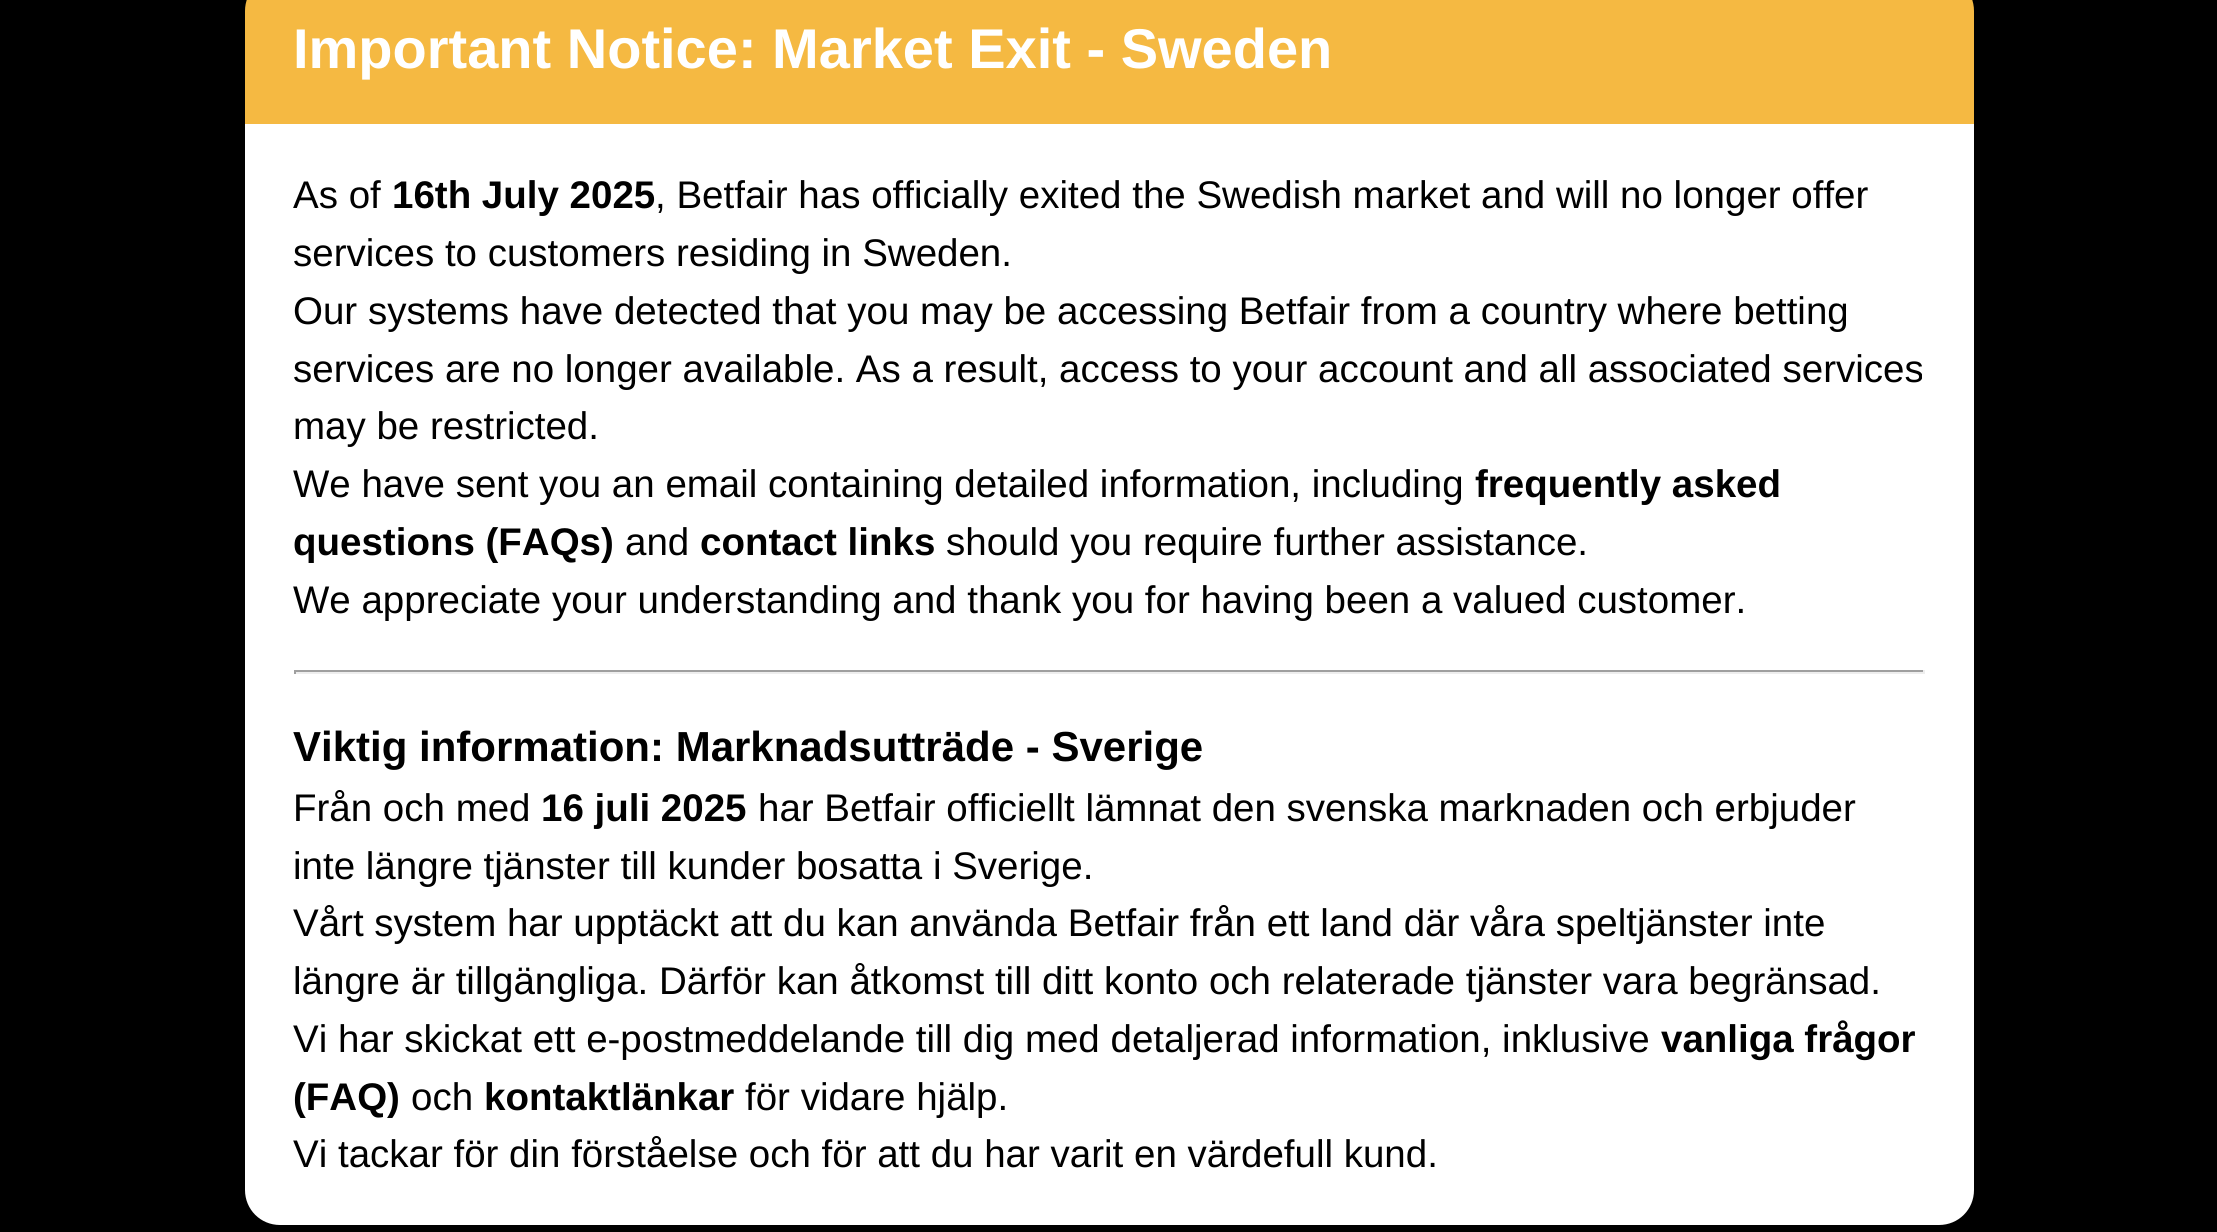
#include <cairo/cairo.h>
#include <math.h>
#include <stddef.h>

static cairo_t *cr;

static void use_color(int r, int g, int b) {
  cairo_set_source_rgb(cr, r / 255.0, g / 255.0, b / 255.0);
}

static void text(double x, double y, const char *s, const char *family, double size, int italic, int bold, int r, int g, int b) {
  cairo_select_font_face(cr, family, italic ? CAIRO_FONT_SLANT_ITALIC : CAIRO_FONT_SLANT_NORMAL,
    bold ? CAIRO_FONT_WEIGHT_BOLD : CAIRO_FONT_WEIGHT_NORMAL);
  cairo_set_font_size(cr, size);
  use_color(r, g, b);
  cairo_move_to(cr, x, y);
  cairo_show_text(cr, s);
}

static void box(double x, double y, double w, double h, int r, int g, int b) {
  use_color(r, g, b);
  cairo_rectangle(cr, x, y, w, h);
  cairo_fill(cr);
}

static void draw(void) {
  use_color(0, 0, 0);
  cairo_paint(cr);
  use_color(245, 185, 66);
  cairo_new_path(cr);
  cairo_move_to(cr, 280, -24);
  cairo_line_to(cr, 1939, -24);
  cairo_curve_to(cr, 1958.5, -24, 1974, -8.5, 1974, 11);
  cairo_line_to(cr, 1974, 124);
  cairo_line_to(cr, 245, 124);
  cairo_line_to(cr, 245, 11);
  cairo_curve_to(cr, 245, -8.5, 260.5, -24, 280, -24);
  cairo_close_path(cr);
  cairo_fill(cr);
  use_color(255, 255, 255);
  cairo_new_path(cr);
  cairo_move_to(cr, 245, 124);
  cairo_line_to(cr, 1974, 124);
  cairo_line_to(cr, 1974, 1190);
  cairo_curve_to(cr, 1974, 1209.5, 1958.5, 1225, 1939, 1225);
  cairo_line_to(cr, 280, 1225);
  cairo_curve_to(cr, 260.5, 1225, 245, 1209.5, 245, 1190);
  cairo_close_path(cr);
  cairo_fill(cr);
  box(294, 670, 1631, 2, 159, 159, 159);
  box(1923, 670, 2, 4, 238, 238, 238);
  box(294, 672, 1631, 2, 238, 238, 238);
  box(294, 670, 2, 4, 159, 159, 159);
  text(293, 68, "Important Notice: Market Exit - Sweden", "Liberation Sans", 56, 0, 1, 255, 255, 255);
  text(293, 208, "As of", "Liberation Sans", 38.5, 0, 0, 0, 0, 0);
  text(392, 208, "16th July 2025", "Liberation Sans", 38.5, 0, 1, 0, 0, 0);
  text(655, 208, ", Betfair has officially exited the Swedish market and will no longer offer", "Liberation Sans", 38.5, 0, 0, 0, 0, 0);
  text(293, 266, "services to customers residing in Sweden.", "Liberation Sans", 38.5, 0, 0, 0, 0, 0);
  text(293, 324, "Our systems have detected that you may be accessing Betfair from a country where betting", "Liberation Sans", 38.5, 0, 0, 0, 0, 0);
  text(293, 382, "services are no longer available. As a result, access to your account and all associated services", "Liberation Sans", 38.5, 0, 0, 0, 0, 0);
  text(293, 439, "may be restricted.", "Liberation Sans", 38.5, 0, 0, 0, 0, 0);
  text(293, 497, "We have sent you an email containing detailed information, including", "Liberation Sans", 38.5, 0, 0, 0, 0, 0);
  text(1475, 497, "frequently asked", "Liberation Sans", 38.5, 0, 1, 0, 0, 0);
  text(293, 555, "questions (FAQs)", "Liberation Sans", 38.5, 0, 1, 0, 0, 0);
  text(625, 555, "and", "Liberation Sans", 38.5, 0, 0, 0, 0, 0);
  text(700, 555, "contact links", "Liberation Sans", 38.5, 0, 1, 0, 0, 0);
  text(946, 555, "should you require further assistance.", "Liberation Sans", 38.5, 0, 0, 0, 0, 0);
  text(293, 613, "We appreciate your understanding and thank you for having been a valued customer.", "Liberation Sans", 38.5, 0, 0, 0, 0, 0);
  text(293, 761, "Viktig information: Marknadsutträde - Sverige", "Liberation Sans", 42, 0, 1, 0, 0, 0);
  text(293, 821, "Från och med", "Liberation Sans", 38.5, 0, 0, 0, 0, 0);
  text(541, 821, "16 juli 2025", "Liberation Sans", 38.5, 0, 1, 0, 0, 0);
  text(758, 821, "har Betfair officiellt lämnat den svenska marknaden och erbjuder", "Liberation Sans", 38.5, 0, 0, 0, 0, 0);
  text(293, 879, "inte längre tjänster till kunder bosatta i Sverige.", "Liberation Sans", 38.5, 0, 0, 0, 0, 0);
  text(293, 936, "Vårt system har upptäckt att du kan använda Betfair från ett land där våra speltjänster inte", "Liberation Sans", 38.5, 0, 0, 0, 0, 0);
  text(293, 994, "längre är tillgängliga. Därför kan åtkomst till ditt konto och relaterade tjänster vara begränsad.", "Liberation Sans", 38.5, 0, 0, 0, 0, 0);
  text(293, 1052, "Vi har skickat ett e-postmeddelande till dig med detaljerad information, inklusive", "Liberation Sans", 38.5, 0, 0, 0, 0, 0);
  text(1661, 1052, "vanliga frågor", "Liberation Sans", 38.5, 0, 1, 0, 0, 0);
  text(293, 1110, "(FAQ)", "Liberation Sans", 38.5, 0, 1, 0, 0, 0);
  text(411, 1110, "och", "Liberation Sans", 38.5, 0, 0, 0, 0, 0);
  text(484, 1110, "kontaktlänkar", "Liberation Sans", 38.5, 0, 1, 0, 0, 0);
  text(745, 1110, "för vidare hjälp.", "Liberation Sans", 38.5, 0, 0, 0, 0, 0);
  text(293, 1167, "Vi tackar för din förståelse och för att du har varit en värdefull kund.", "Liberation Sans", 38.5, 0, 0, 0, 0, 0);
}

int main(void) {
  cairo_surface_t *surface = cairo_image_surface_create(CAIRO_FORMAT_RGB24, 2217, 1232);
  cr = cairo_create(surface);
  cairo_font_options_t *options = cairo_font_options_create();
  cairo_font_options_set_hint_metrics(options, CAIRO_HINT_METRICS_OFF);
  cairo_font_options_set_hint_style(options, CAIRO_HINT_STYLE_NONE);
  cairo_set_font_options(cr, options);
  cairo_set_miter_limit(cr, 4);
  draw();
  cairo_surface_write_to_png(surface, "out.png");
  cairo_font_options_destroy(options);
  cairo_destroy(cr);
  cairo_surface_destroy(surface);
  return 0;
}
